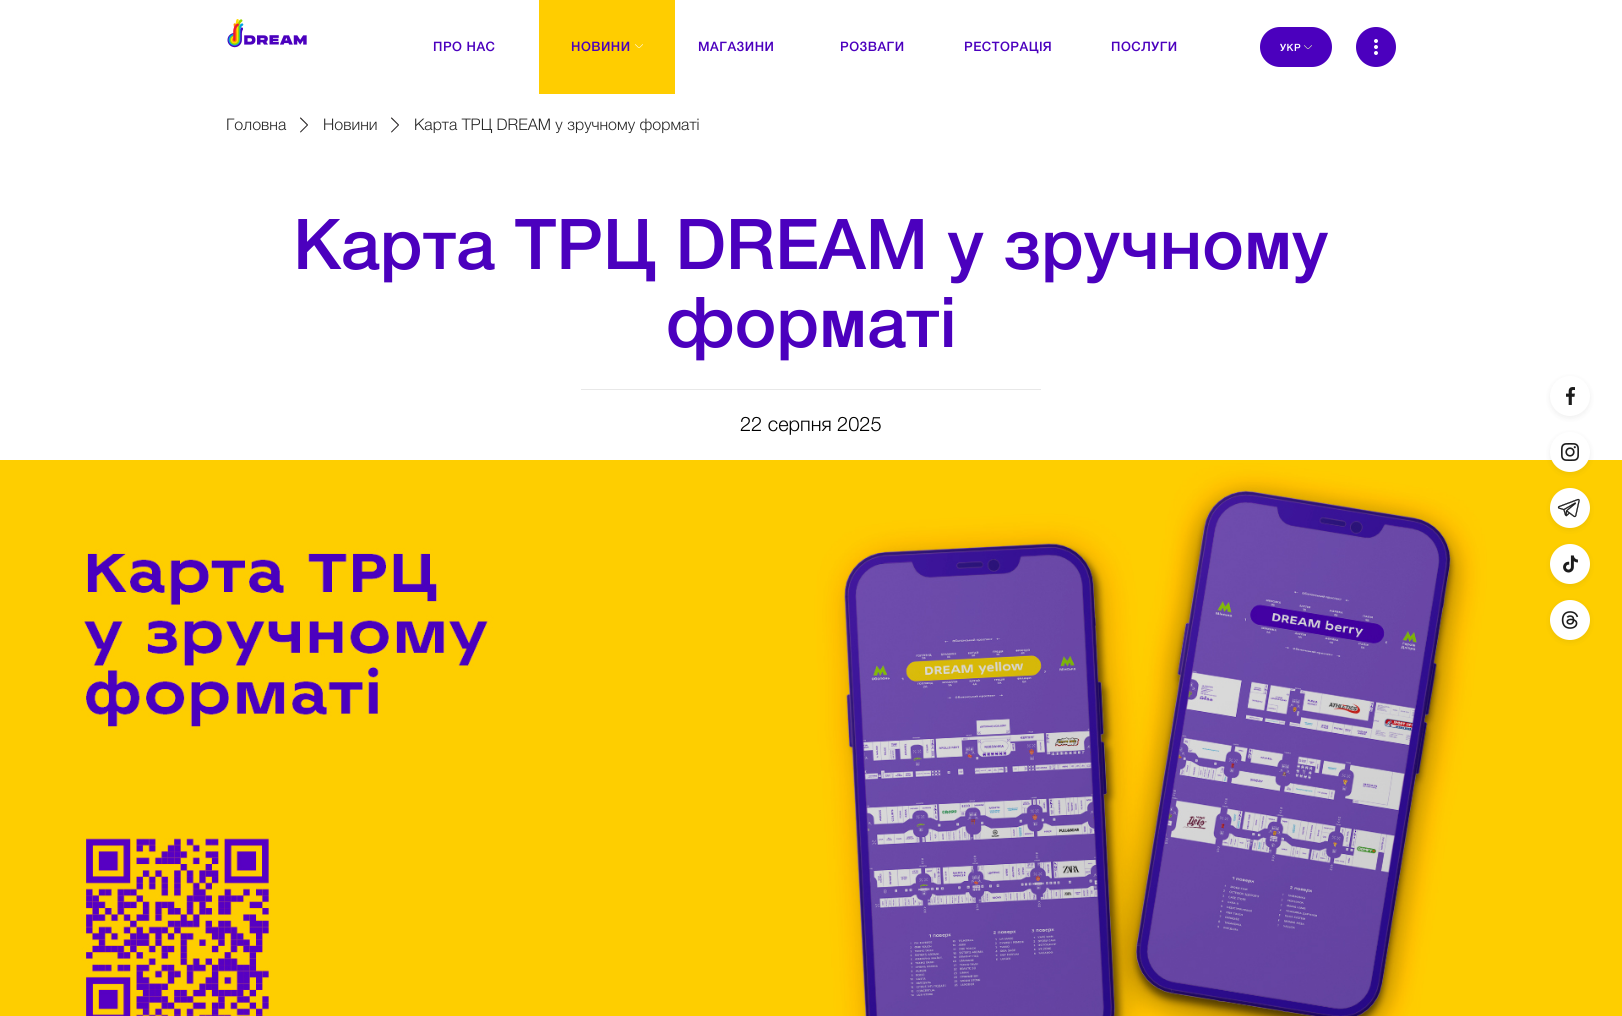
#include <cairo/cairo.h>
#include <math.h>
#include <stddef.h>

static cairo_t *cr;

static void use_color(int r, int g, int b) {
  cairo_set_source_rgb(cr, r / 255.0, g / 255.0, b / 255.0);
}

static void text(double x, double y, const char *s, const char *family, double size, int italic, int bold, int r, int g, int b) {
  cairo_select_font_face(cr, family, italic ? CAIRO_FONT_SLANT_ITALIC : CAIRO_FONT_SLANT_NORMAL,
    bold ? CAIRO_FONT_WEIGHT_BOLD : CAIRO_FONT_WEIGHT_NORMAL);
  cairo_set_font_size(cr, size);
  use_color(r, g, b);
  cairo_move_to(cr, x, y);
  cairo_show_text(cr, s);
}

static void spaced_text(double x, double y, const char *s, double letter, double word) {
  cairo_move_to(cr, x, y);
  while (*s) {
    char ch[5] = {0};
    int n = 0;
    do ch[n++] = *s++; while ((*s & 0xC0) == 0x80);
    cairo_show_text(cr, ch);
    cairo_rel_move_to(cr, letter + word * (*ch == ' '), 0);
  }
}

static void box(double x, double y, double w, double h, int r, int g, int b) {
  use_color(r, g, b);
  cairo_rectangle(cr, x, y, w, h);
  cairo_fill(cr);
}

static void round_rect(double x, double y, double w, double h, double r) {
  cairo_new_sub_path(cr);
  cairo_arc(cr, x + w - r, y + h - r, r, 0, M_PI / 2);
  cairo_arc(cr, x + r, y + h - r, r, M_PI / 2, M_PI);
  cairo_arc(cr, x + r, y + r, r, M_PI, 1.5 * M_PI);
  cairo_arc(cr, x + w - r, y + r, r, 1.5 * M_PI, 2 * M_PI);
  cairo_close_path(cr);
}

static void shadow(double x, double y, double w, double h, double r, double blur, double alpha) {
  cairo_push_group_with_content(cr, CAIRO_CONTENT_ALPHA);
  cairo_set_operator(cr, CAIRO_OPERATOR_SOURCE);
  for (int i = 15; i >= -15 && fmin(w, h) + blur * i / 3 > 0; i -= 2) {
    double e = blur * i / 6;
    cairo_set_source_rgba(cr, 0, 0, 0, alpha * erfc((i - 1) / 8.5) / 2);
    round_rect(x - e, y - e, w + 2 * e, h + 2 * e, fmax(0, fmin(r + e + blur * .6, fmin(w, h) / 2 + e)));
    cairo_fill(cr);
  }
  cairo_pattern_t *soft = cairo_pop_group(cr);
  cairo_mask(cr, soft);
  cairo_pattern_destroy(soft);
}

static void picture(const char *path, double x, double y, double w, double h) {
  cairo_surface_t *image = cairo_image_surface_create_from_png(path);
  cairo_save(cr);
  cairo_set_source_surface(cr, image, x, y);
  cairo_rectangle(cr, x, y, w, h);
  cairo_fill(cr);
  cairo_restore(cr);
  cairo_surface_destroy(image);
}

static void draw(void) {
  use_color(255, 255, 255);
  cairo_paint(cr);
  picture("img_01.png", 227, 19, 80, 29);
  box(539, 0, 136, 94, 255, 205, 0);
  picture("img_02.png", 635, 44, 8, 4);
  use_color(75, 0, 190);
  round_rect(1260, 27, 72, 40, 20);
  cairo_fill(cr);
  picture("img_03.png", 1304, 45, 8, 4);
  picture("img_04.png", 1304, 45, 8, 4);
  cairo_arc(cr, 1376, 47, 20, 0, 2 * M_PI);
  cairo_fill(cr);
  picture("img_05.png", 1374, 39, 4, 16);
  use_color(39, 39, 39);
  shadow(1550, 378, 40, 40, 20, 3, 0.08);
  use_color(255, 255, 255);
  cairo_arc(cr, 1570, 396, 20, 0, 2 * M_PI);
  cairo_fill(cr);
  picture("img_06.png", 1566, 387, 9, 18);
  picture("img_12.png", 0, 460, 1622, 556);
  use_color(39, 39, 39);
  shadow(1550, 434, 40, 40, 20, 3, 0.08);
  use_color(255, 255, 255);
  cairo_arc(cr, 1570, 452, 20, 0, 2 * M_PI);
  cairo_fill(cr);
  picture("img_07.png", 1561, 443, 18, 18);
  use_color(39, 39, 39);
  shadow(1550, 490, 40, 40, 20, 3, 0.08);
  use_color(255, 255, 255);
  cairo_arc(cr, 1570, 508, 20, 0, 2 * M_PI);
  cairo_fill(cr);
  picture("img_08.png", 1557, 498, 23, 20);
  use_color(39, 39, 39);
  shadow(1550, 546, 40, 40, 20, 3, 0.08);
  use_color(255, 255, 255);
  cairo_arc(cr, 1570, 564, 20, 0, 2 * M_PI);
  cairo_fill(cr);
  picture("img_09.png", 1563, 555, 15, 18);
  use_color(39, 39, 39);
  shadow(1550, 602, 40, 40, 20, 3, 0.08);
  use_color(255, 255, 255);
  cairo_arc(cr, 1570, 620, 20, 0, 2 * M_PI);
  cairo_fill(cr);
  picture("img_10.png", 1561, 611, 18, 18);
  picture("img_11.png", 300, 117, 8, 16);
  picture("img_11.png", 391, 117, 8, 16);
  box(581, 389, 460, 1, 232, 232, 232);
  cairo_select_font_face(cr, "Helvetica Neue Medium", CAIRO_FONT_SLANT_NORMAL, CAIRO_FONT_WEIGHT_NORMAL);
  cairo_set_font_size(cr, 13);
  use_color(75, 0, 190);
  spaced_text(433, 51, "ПРО НАС", 0.5, 0);
  spaced_text(571, 51, "НОВИНИ", 0.5, 0);
  spaced_text(698, 51, "МАГАЗИНИ", 0.5, 0);
  spaced_text(840, 51, "РОЗВАГИ", 0.5, 0);
  spaced_text(964, 51, "РЕСТОРАЦІЯ", 0.5, 0);
  spaced_text(1111, 51, "ПОСЛУГИ", 0.5, 0);
  cairo_set_font_size(cr, 10);
  use_color(255, 255, 255);
  spaced_text(1280, 51, "УКР", 0.5, 0);
  text(226, 130, "Головна", "Helvetica Neue Light", 16, 0, 0, 39, 39, 39);
  text(323, 130, "Новини", "Helvetica Neue Light", 16, 0, 0, 39, 39, 39);
  text(414, 130, "Карта ТРЦ DREAM у зручному форматі", "Helvetica Neue Light", 16, 0, 0, 39, 39, 39);
  text(293, 269, "Карта ТРЦ DREAM у зручному", "Helvetica Neue Medium", 70, 0, 0, 75, 0, 190);
  text(666, 347, "форматі", "Helvetica Neue Medium", 70, 0, 0, 75, 0, 190);
  text(740, 431, "22 серпня 2025", "Helvetica Neue Light", 20, 0, 0, 0, 0, 0);
}

int main(void) {
  cairo_surface_t *surface = cairo_image_surface_create(CAIRO_FORMAT_RGB24, 1622, 1016);
  cr = cairo_create(surface);
  cairo_font_options_t *options = cairo_font_options_create();
  cairo_font_options_set_hint_metrics(options, CAIRO_HINT_METRICS_OFF);
  cairo_font_options_set_hint_style(options, CAIRO_HINT_STYLE_NONE);
  cairo_set_font_options(cr, options);
  cairo_set_miter_limit(cr, 4);
  draw();
  cairo_surface_write_to_png(surface, "out.png");
  cairo_font_options_destroy(options);
  cairo_destroy(cr);
  cairo_surface_destroy(surface);
  return 0;
}
